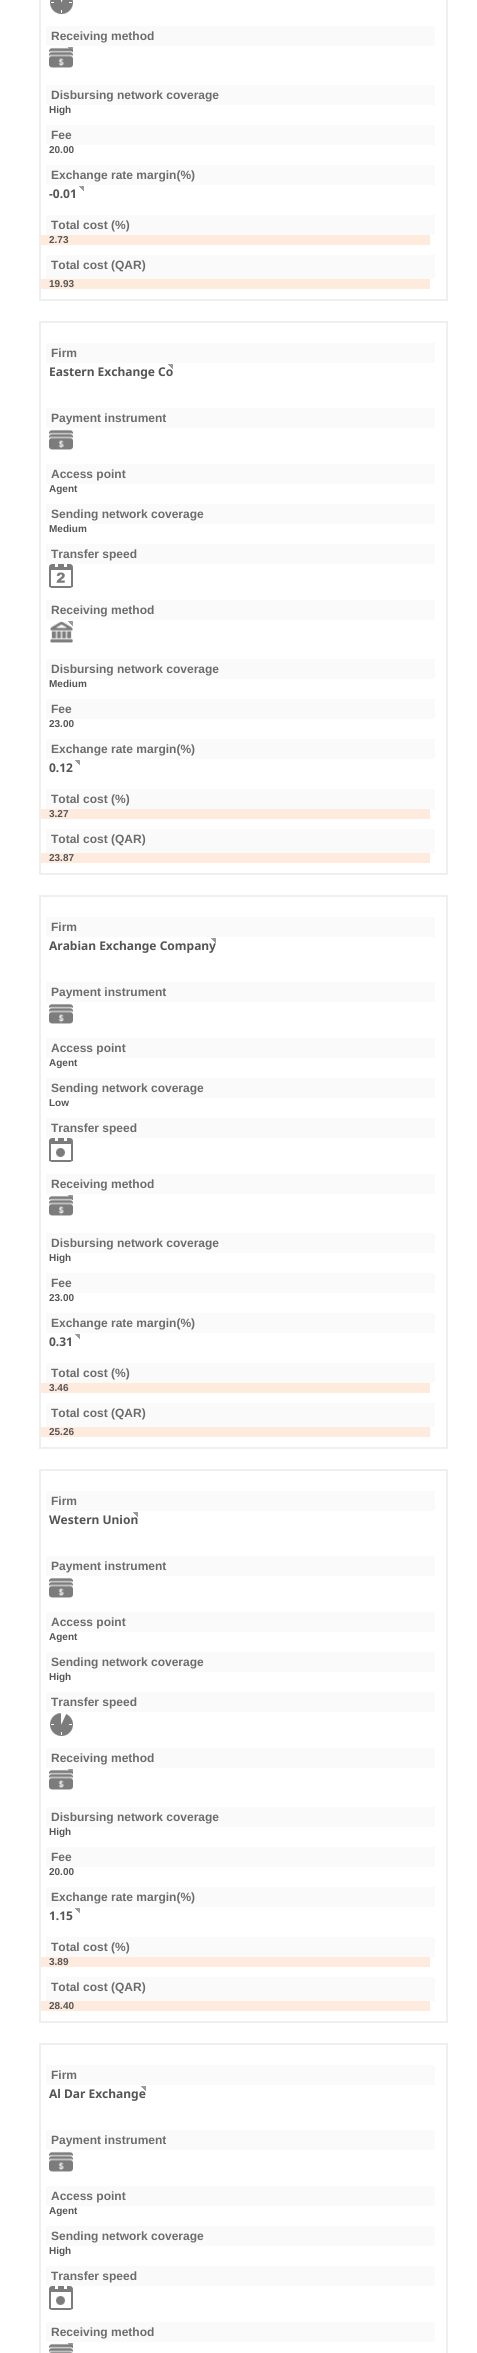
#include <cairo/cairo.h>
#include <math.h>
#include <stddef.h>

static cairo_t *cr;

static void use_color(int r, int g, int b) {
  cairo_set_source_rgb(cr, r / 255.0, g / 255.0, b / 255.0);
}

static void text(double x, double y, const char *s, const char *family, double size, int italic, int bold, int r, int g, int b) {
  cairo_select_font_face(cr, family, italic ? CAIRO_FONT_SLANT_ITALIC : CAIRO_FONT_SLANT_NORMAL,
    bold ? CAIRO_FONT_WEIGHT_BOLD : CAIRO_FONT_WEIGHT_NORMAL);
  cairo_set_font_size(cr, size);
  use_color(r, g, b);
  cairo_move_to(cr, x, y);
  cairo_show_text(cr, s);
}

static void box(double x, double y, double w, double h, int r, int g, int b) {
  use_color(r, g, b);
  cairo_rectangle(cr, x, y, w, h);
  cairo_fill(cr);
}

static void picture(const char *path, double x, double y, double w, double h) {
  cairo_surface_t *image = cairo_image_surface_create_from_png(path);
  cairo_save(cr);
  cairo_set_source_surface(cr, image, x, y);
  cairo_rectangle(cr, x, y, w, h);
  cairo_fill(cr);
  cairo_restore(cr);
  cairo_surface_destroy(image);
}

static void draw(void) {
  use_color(255, 255, 255);
  cairo_paint(cr);
  cairo_rectangle(cr, 40, -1, 407, 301);
  use_color(239, 239, 239);
  cairo_stroke(cr);
  picture("img_01.png", 50, 0, 23, 14);
  box(46, 26, 389, 20, 250, 250, 250);
  picture("img_02.png", 68, 47, 5, 5);
  picture("img_03.png", 49, 47, 24, 21);
  box(46, 85, 389, 20, 250, 250, 250);
  box(46, 125, 389, 20, 250, 250, 250);
  box(46, 165, 389, 20, 250, 250, 250);
  picture("img_02.png", 79, 186, 5, 5);
  box(46, 215, 389, 20, 250, 250, 250);
  box(41, 235, 389, 10, 254, 235, 221);
  box(46, 255, 389, 24, 250, 250, 250);
  box(41, 279, 389, 10, 254, 235, 221);
  cairo_rectangle(cr, 40, 322, 407, 552);
  use_color(239, 239, 239);
  cairo_stroke(cr);
  box(46, 343, 389, 20, 250, 250, 250);
  picture("img_02.png", 168, 364, 5, 5);
  box(46, 408, 389, 20, 250, 250, 250);
  picture("img_04.png", 49, 429, 24, 21);
  box(46, 464, 389, 20, 250, 250, 250);
  box(46, 504, 389, 20, 250, 250, 250);
  box(46, 544, 389, 20, 250, 250, 250);
  picture("img_05.png", 49, 564, 24, 24);
  box(46, 600, 389, 20, 250, 250, 250);
  picture("img_02.png", 68, 621, 5, 5);
  picture("img_06.png", 50, 621, 23, 22);
  box(46, 659, 389, 20, 250, 250, 250);
  box(46, 699, 389, 20, 250, 250, 250);
  box(46, 739, 389, 20, 250, 250, 250);
  picture("img_02.png", 75, 760, 5, 5);
  box(46, 789, 389, 20, 250, 250, 250);
  box(41, 809, 389, 10, 254, 235, 221);
  box(46, 829, 389, 24, 250, 250, 250);
  box(41, 853, 389, 10, 254, 235, 221);
  cairo_rectangle(cr, 40, 896, 407, 552);
  use_color(239, 239, 239);
  cairo_stroke(cr);
  box(46, 917, 389, 20, 250, 250, 250);
  picture("img_02.png", 211, 938, 5, 5);
  box(46, 982, 389, 20, 250, 250, 250);
  picture("img_04.png", 49, 1003, 24, 21);
  box(46, 1038, 389, 20, 250, 250, 250);
  box(46, 1078, 389, 20, 250, 250, 250);
  box(46, 1118, 389, 20, 250, 250, 250);
  picture("img_07.png", 49, 1138, 24, 24);
  box(46, 1174, 389, 20, 250, 250, 250);
  picture("img_02.png", 68, 1195, 5, 5);
  picture("img_03.png", 49, 1195, 24, 21);
  box(46, 1233, 389, 20, 250, 250, 250);
  box(46, 1273, 389, 20, 250, 250, 250);
  box(46, 1313, 389, 20, 250, 250, 250);
  picture("img_02.png", 75, 1334, 5, 5);
  box(46, 1363, 389, 20, 250, 250, 250);
  box(41, 1383, 389, 10, 254, 235, 221);
  box(46, 1403, 389, 24, 250, 250, 250);
  box(41, 1427, 389, 10, 254, 235, 221);
  cairo_rectangle(cr, 40, 1470, 407, 552);
  use_color(239, 239, 239);
  cairo_stroke(cr);
  box(46, 1491, 389, 20, 250, 250, 250);
  picture("img_02.png", 133, 1512, 5, 5);
  box(46, 1556, 389, 20, 250, 250, 250);
  picture("img_04.png", 49, 1577, 24, 21);
  box(46, 1612, 389, 20, 250, 250, 250);
  box(46, 1652, 389, 20, 250, 250, 250);
  box(46, 1692, 389, 20, 250, 250, 250);
  picture("img_08.png", 50, 1713, 23, 23);
  box(46, 1748, 389, 20, 250, 250, 250);
  picture("img_02.png", 68, 1769, 5, 5);
  picture("img_03.png", 49, 1769, 24, 21);
  box(46, 1807, 389, 20, 250, 250, 250);
  box(46, 1847, 389, 20, 250, 250, 250);
  box(46, 1887, 389, 20, 250, 250, 250);
  picture("img_02.png", 75, 1908, 5, 5);
  box(46, 1937, 389, 20, 250, 250, 250);
  box(41, 1957, 389, 10, 254, 235, 221);
  box(46, 1977, 389, 24, 250, 250, 250);
  box(41, 2001, 389, 10, 254, 235, 221);
  cairo_rectangle(cr, 40, 2044, 407, 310);
  use_color(239, 239, 239);
  cairo_stroke(cr);
  box(46, 2065, 389, 20, 250, 250, 250);
  picture("img_02.png", 141, 2086, 5, 5);
  box(46, 2130, 389, 20, 250, 250, 250);
  picture("img_04.png", 49, 2151, 24, 21);
  box(46, 2186, 389, 20, 250, 250, 250);
  box(46, 2226, 389, 20, 250, 250, 250);
  box(46, 2266, 389, 20, 250, 250, 250);
  picture("img_07.png", 49, 2286, 24, 24);
  box(46, 2322, 389, 20, 250, 250, 250);
  picture("img_02.png", 68, 2343, 5, 5);
  picture("img_09.png", 49, 2343, 24, 10);
  text(51, 40, "Receiving method", "Liberation Sans", 12, 0, 1, 108, 108, 108);
  text(51, 99, "Disbursing network coverage", "Liberation Sans", 12, 0, 1, 108, 108, 108);
  text(49, 113, "High", "Liberation Sans", 10, 0, 1, 85, 85, 85);
  text(51, 139, "Fee", "Liberation Sans", 12, 0, 1, 108, 108, 108);
  text(49, 153, "20.00", "Liberation Sans", 10, 0, 1, 85, 85, 85);
  text(51, 179, "Exchange rate margin(%)", "Liberation Sans", 12, 0, 1, 108, 108, 108);
  text(49, 198, "-0.01", "Noto Sans", 12, 0, 1, 85, 85, 85);
  text(51, 229, "Total cost (%)", "Liberation Sans", 12, 0, 1, 108, 108, 108);
  text(49, 243, "2.73", "Liberation Sans", 10, 0, 1, 85, 85, 85);
  text(51, 269, "Total cost (QAR)", "Liberation Sans", 12, 0, 1, 108, 108, 108);
  text(49, 287, "19.93", "Liberation Sans", 10, 0, 1, 85, 85, 85);
  text(51, 357, "Firm", "Liberation Sans", 12, 0, 1, 108, 108, 108);
  text(49, 376, "Eastern Exchange Co", "Noto Sans", 12, 0, 1, 85, 85, 85);
  text(51, 422, "Payment instrument", "Liberation Sans", 12, 0, 1, 108, 108, 108);
  text(51, 478, "Access point", "Liberation Sans", 12, 0, 1, 108, 108, 108);
  text(49, 492, "Agent", "Liberation Sans", 10, 0, 1, 85, 85, 85);
  text(51, 518, "Sending network coverage", "Liberation Sans", 12, 0, 1, 108, 108, 108);
  text(49, 532, "Medium", "Liberation Sans", 10, 0, 1, 85, 85, 85);
  text(51, 558, "Transfer speed", "Liberation Sans", 12, 0, 1, 108, 108, 108);
  text(51, 614, "Receiving method", "Liberation Sans", 12, 0, 1, 108, 108, 108);
  text(51, 673, "Disbursing network coverage", "Liberation Sans", 12, 0, 1, 108, 108, 108);
  text(49, 687, "Medium", "Liberation Sans", 10, 0, 1, 85, 85, 85);
  text(51, 713, "Fee", "Liberation Sans", 12, 0, 1, 108, 108, 108);
  text(49, 727, "23.00", "Liberation Sans", 10, 0, 1, 85, 85, 85);
  text(51, 753, "Exchange rate margin(%)", "Liberation Sans", 12, 0, 1, 108, 108, 108);
  text(49, 772, "0.12", "Noto Sans", 12, 0, 1, 85, 85, 85);
  text(51, 803, "Total cost (%)", "Liberation Sans", 12, 0, 1, 108, 108, 108);
  text(49, 817, "3.27", "Liberation Sans", 10, 0, 1, 85, 85, 85);
  text(51, 843, "Total cost (QAR)", "Liberation Sans", 12, 0, 1, 108, 108, 108);
  text(49, 861, "23.87", "Liberation Sans", 10, 0, 1, 85, 85, 85);
  text(51, 931, "Firm", "Liberation Sans", 12, 0, 1, 108, 108, 108);
  text(49, 950, "Arabian Exchange Company", "Noto Sans", 12, 0, 1, 85, 85, 85);
  text(51, 996, "Payment instrument", "Liberation Sans", 12, 0, 1, 108, 108, 108);
  text(51, 1052, "Access point", "Liberation Sans", 12, 0, 1, 108, 108, 108);
  text(49, 1066, "Agent", "Liberation Sans", 10, 0, 1, 85, 85, 85);
  text(51, 1092, "Sending network coverage", "Liberation Sans", 12, 0, 1, 108, 108, 108);
  text(49, 1106, "Low", "Liberation Sans", 10, 0, 1, 85, 85, 85);
  text(51, 1132, "Transfer speed", "Liberation Sans", 12, 0, 1, 108, 108, 108);
  text(51, 1188, "Receiving method", "Liberation Sans", 12, 0, 1, 108, 108, 108);
  text(51, 1247, "Disbursing network coverage", "Liberation Sans", 12, 0, 1, 108, 108, 108);
  text(49, 1261, "High", "Liberation Sans", 10, 0, 1, 85, 85, 85);
  text(51, 1287, "Fee", "Liberation Sans", 12, 0, 1, 108, 108, 108);
  text(49, 1301, "23.00", "Liberation Sans", 10, 0, 1, 85, 85, 85);
  text(51, 1327, "Exchange rate margin(%)", "Liberation Sans", 12, 0, 1, 108, 108, 108);
  text(49, 1346, "0.31", "Noto Sans", 12, 0, 1, 85, 85, 85);
  text(51, 1377, "Total cost (%)", "Liberation Sans", 12, 0, 1, 108, 108, 108);
  text(49, 1391, "3.46", "Liberation Sans", 10, 0, 1, 85, 85, 85);
  text(51, 1417, "Total cost (QAR)", "Liberation Sans", 12, 0, 1, 108, 108, 108);
  text(49, 1435, "25.26", "Liberation Sans", 10, 0, 1, 85, 85, 85);
  text(51, 1505, "Firm", "Liberation Sans", 12, 0, 1, 108, 108, 108);
  text(49, 1524, "Western Union", "Noto Sans", 12, 0, 1, 85, 85, 85);
  text(51, 1570, "Payment instrument", "Liberation Sans", 12, 0, 1, 108, 108, 108);
  text(51, 1626, "Access point", "Liberation Sans", 12, 0, 1, 108, 108, 108);
  text(49, 1640, "Agent", "Liberation Sans", 10, 0, 1, 85, 85, 85);
  text(51, 1666, "Sending network coverage", "Liberation Sans", 12, 0, 1, 108, 108, 108);
  text(49, 1680, "High", "Liberation Sans", 10, 0, 1, 85, 85, 85);
  text(51, 1706, "Transfer speed", "Liberation Sans", 12, 0, 1, 108, 108, 108);
  text(51, 1762, "Receiving method", "Liberation Sans", 12, 0, 1, 108, 108, 108);
  text(51, 1821, "Disbursing network coverage", "Liberation Sans", 12, 0, 1, 108, 108, 108);
  text(49, 1835, "High", "Liberation Sans", 10, 0, 1, 85, 85, 85);
  text(51, 1861, "Fee", "Liberation Sans", 12, 0, 1, 108, 108, 108);
  text(49, 1875, "20.00", "Liberation Sans", 10, 0, 1, 85, 85, 85);
  text(51, 1901, "Exchange rate margin(%)", "Liberation Sans", 12, 0, 1, 108, 108, 108);
  text(49, 1920, "1.15", "Noto Sans", 12, 0, 1, 85, 85, 85);
  text(51, 1951, "Total cost (%)", "Liberation Sans", 12, 0, 1, 108, 108, 108);
  text(49, 1965, "3.89", "Liberation Sans", 10, 0, 1, 85, 85, 85);
  text(51, 1991, "Total cost (QAR)", "Liberation Sans", 12, 0, 1, 108, 108, 108);
  text(49, 2009, "28.40", "Liberation Sans", 10, 0, 1, 85, 85, 85);
  text(51, 2079, "Firm", "Liberation Sans", 12, 0, 1, 108, 108, 108);
  text(49, 2098, "Al Dar Exchange", "Noto Sans", 12, 0, 1, 85, 85, 85);
  text(51, 2144, "Payment instrument", "Liberation Sans", 12, 0, 1, 108, 108, 108);
  text(51, 2200, "Access point", "Liberation Sans", 12, 0, 1, 108, 108, 108);
  text(49, 2214, "Agent", "Liberation Sans", 10, 0, 1, 85, 85, 85);
  text(51, 2240, "Sending network coverage", "Liberation Sans", 12, 0, 1, 108, 108, 108);
  text(49, 2254, "High", "Liberation Sans", 10, 0, 1, 85, 85, 85);
  text(51, 2280, "Transfer speed", "Liberation Sans", 12, 0, 1, 108, 108, 108);
  text(51, 2336, "Receiving method", "Liberation Sans", 12, 0, 1, 108, 108, 108);
}

int main(void) {
  cairo_surface_t *surface = cairo_image_surface_create(CAIRO_FORMAT_RGB24, 477, 2353);
  cr = cairo_create(surface);
  cairo_font_options_t *options = cairo_font_options_create();
  cairo_font_options_set_hint_metrics(options, CAIRO_HINT_METRICS_OFF);
  cairo_font_options_set_hint_style(options, CAIRO_HINT_STYLE_NONE);
  cairo_set_font_options(cr, options);
  cairo_set_miter_limit(cr, 4);
  draw();
  cairo_surface_write_to_png(surface, "out.png");
  cairo_font_options_destroy(options);
  cairo_destroy(cr);
  cairo_surface_destroy(surface);
  return 0;
}
